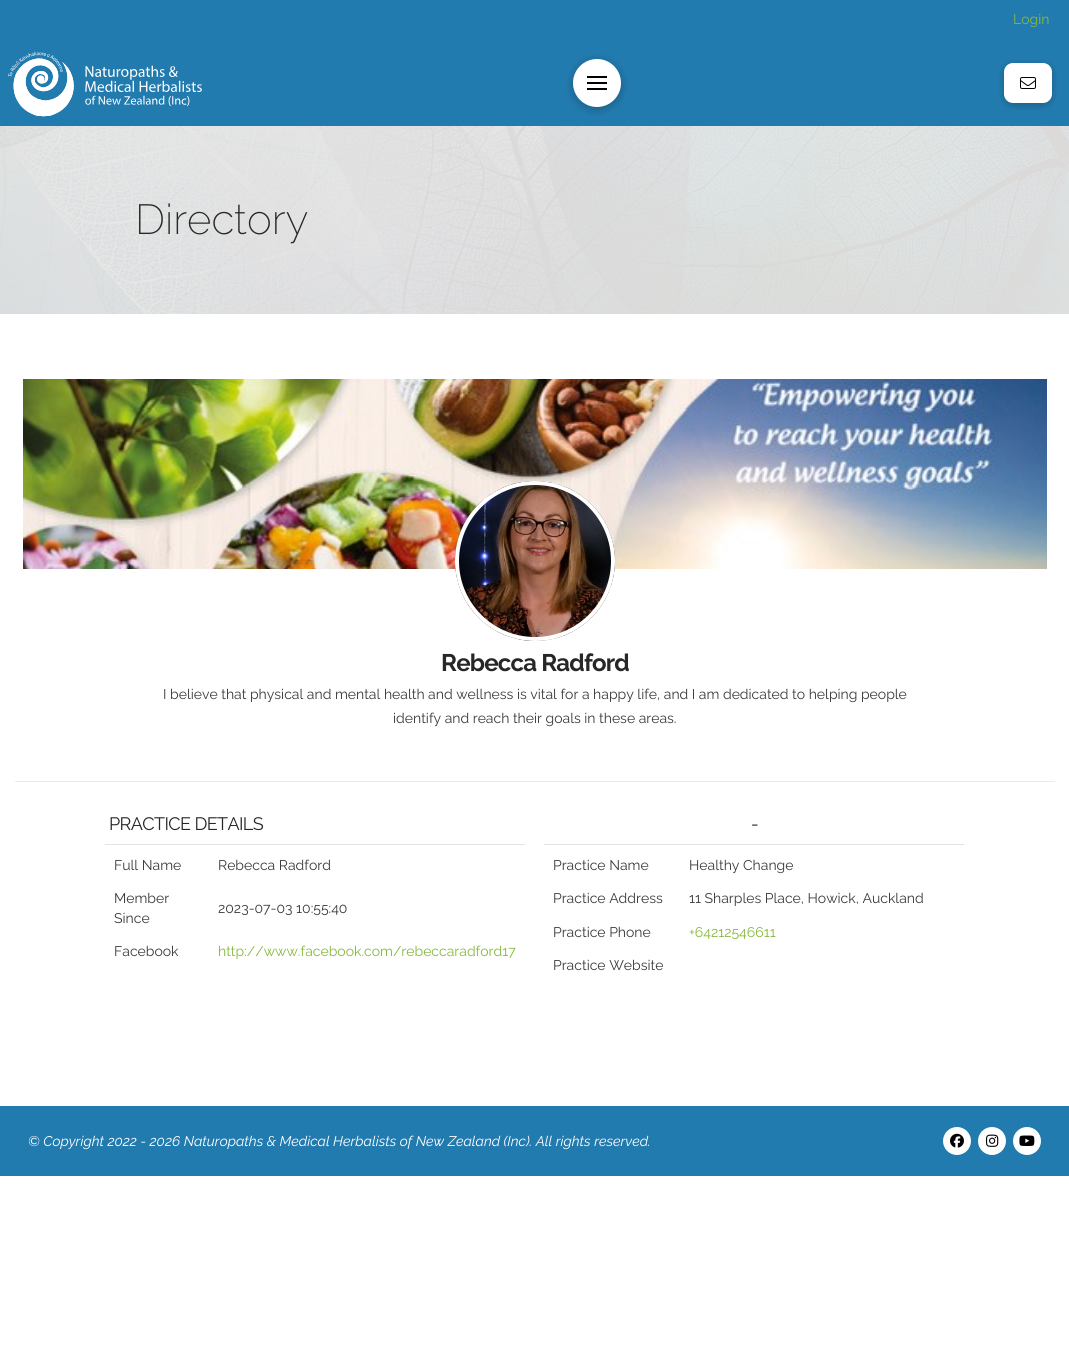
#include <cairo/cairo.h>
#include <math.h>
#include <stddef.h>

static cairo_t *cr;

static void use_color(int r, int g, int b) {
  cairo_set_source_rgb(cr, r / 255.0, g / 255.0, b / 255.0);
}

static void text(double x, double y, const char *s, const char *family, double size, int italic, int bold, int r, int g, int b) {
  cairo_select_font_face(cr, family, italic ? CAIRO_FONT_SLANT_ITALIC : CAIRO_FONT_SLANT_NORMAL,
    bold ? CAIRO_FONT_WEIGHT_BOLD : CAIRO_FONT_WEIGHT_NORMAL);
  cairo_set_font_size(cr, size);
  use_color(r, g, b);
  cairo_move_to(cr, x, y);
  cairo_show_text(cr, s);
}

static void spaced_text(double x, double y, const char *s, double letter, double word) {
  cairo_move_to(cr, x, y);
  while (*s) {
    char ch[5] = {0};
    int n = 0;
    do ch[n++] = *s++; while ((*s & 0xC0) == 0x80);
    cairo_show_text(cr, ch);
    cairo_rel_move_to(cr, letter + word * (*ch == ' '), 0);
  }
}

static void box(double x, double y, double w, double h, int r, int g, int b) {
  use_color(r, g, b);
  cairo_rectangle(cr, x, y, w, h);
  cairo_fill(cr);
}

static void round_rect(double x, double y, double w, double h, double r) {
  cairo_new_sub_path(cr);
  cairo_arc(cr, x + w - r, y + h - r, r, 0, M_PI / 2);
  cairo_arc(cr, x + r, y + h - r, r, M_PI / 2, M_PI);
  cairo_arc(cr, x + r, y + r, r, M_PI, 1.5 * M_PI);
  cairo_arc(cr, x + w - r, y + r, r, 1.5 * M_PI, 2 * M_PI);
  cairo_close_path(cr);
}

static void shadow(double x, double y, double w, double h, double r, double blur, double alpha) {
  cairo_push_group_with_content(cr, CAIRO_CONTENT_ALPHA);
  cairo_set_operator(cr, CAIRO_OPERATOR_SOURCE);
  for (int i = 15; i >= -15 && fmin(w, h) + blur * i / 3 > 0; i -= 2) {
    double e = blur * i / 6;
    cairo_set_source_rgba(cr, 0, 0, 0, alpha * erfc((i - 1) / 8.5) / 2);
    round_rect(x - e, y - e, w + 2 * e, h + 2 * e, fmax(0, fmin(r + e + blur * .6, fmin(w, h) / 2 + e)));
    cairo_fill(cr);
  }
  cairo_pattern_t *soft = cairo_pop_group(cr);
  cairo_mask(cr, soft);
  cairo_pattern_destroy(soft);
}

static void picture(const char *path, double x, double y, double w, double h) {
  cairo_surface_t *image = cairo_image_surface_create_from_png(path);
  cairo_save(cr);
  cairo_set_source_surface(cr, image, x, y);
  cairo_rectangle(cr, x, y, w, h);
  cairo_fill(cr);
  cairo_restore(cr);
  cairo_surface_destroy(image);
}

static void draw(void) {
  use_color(255, 255, 255);
  cairo_paint(cr);
  box(0, 0, 1069, 126, 34, 123, 175);
  picture("img_01.png", 8, 51, 194, 66);
  use_color(0, 0, 0);
  shadow(573, 61, 48, 48, 24, 5, 0.25);
  use_color(255, 255, 255);
  cairo_arc(cr, 597, 83, 24, 0, 2 * M_PI);
  cairo_fill(cr);
  box(587, 76, 20, 2, 0, 0, 0);
  box(587, 82, 20, 2, 0, 0, 0);
  box(587, 88, 20, 2, 0, 0, 0);
  use_color(0, 0, 0);
  shadow(1004, 65, 48, 40, 9, 4, 0.25);
  use_color(255, 255, 255);
  round_rect(1004, 63, 48, 40, 9);
  cairo_fill(cr);
  picture("img_02.png", 1020, 77, 16, 12);
  picture("img_03.png", 0, 126, 1069, 188);
  box(15, 781, 1040, 1, 234, 234, 234);
  picture("img_04.png", 23, 379, 1024, 190);
  picture("img_05.png", 455, 481, 160, 160);
  cairo_arc(cr, 535, 561, 78, 0, 2 * M_PI);
  use_color(255, 255, 255);
  cairo_set_line_width(cr, 4);
  cairo_stroke(cr);
  box(105, 844, 420, 1, 227, 227, 227);
  box(544, 844, 420, 1, 227, 227, 227);
  box(0, 1106, 1069, 70, 34, 123, 175);
  use_color(255, 255, 255);
  cairo_arc(cr, 957, 1141, 14, 0, 2 * M_PI);
  cairo_fill(cr);
  picture("img_06.png", 950, 1133, 14, 15);
  cairo_arc(cr, 992, 1141, 14, 0, 2 * M_PI);
  cairo_fill(cr);
  picture("img_07.png", 986, 1134, 13, 13);
  cairo_arc(cr, 1027, 1141, 14, 0, 2 * M_PI);
  cairo_fill(cr);
  picture("img_08.png", 1019, 1135, 16, 11);
  text(1013, 24, "Login", "Raleway", 14, 0, 0, 133, 185, 60);
  text(135, 234, "Directory", "Raleway ExtraLight", 42, 0, 0, 39, 39, 39);
  cairo_select_font_face(cr, "Raleway", CAIRO_FONT_SLANT_NORMAL, CAIRO_FONT_WEIGHT_BOLD);
  cairo_set_font_size(cr, 24);
  spaced_text(441, 671, "Rebecca Radford", -0.8, 0);
  text(163, 699, "I believe that physical and mental health and wellness is vital for a happy life, and I am dedicated to helping people", "Raleway", 14, 0, 0, 58, 58, 58);
  text(393, 723, "identify and reach their goals in these areas.", "Raleway", 14, 0, 0, 58, 58, 58);
  cairo_set_font_size(cr, 18);
  use_color(39, 39, 39);
  spaced_text(109, 830, "PRACTICE DETAILS", -0.6, 0);
  text(114, 870, "Full Name", "Raleway", 14, 0, 0, 58, 58, 58);
  text(218, 870, "Rebecca Radford", "Raleway", 14, 0, 0, 58, 58, 58);
  text(114, 903, "Member", "Raleway", 14, 0, 0, 58, 58, 58);
  text(114, 923, "Since", "Raleway", 14, 0, 0, 58, 58, 58);
  text(218, 913, "2023-07-03 10:55:40", "Raleway", 14, 0, 0, 58, 58, 58);
  text(114, 956, "Facebook", "Raleway", 14, 0, 0, 58, 58, 58);
  text(218, 956, "http://www.facebook.com/rebeccaradford17", "Raleway", 14, 0, 0, 133, 185, 60);
  cairo_set_font_size(cr, 18);
  use_color(39, 39, 39);
  spaced_text(751, 830, "-", -0.6, 0);
  text(553, 870, "Practice Name", "Raleway", 14, 0, 0, 58, 58, 58);
  text(689, 870, "Healthy Change", "Raleway", 14, 0, 0, 58, 58, 58);
  text(553, 903, "Practice Address", "Raleway", 14, 0, 0, 58, 58, 58);
  text(689, 903, "11 Sharples Place, Howick, Auckland", "Raleway", 14, 0, 0, 58, 58, 58);
  text(553, 937, "Practice Phone", "Raleway", 14, 0, 0, 58, 58, 58);
  text(689, 937, "+64212546611", "Raleway", 14, 0, 0, 133, 185, 60);
  text(553, 970, "Practice Website", "Raleway", 14, 0, 0, 58, 58, 58);
  text(28, 1146, "© Copyright 2022 - 2026 Naturopaths & Medical Herbalists of New Zealand (Inc). All rights reserved.", "Raleway", 14, 1, 0, 255, 255, 255);
}

int main(void) {
  cairo_surface_t *surface = cairo_image_surface_create(CAIRO_FORMAT_RGB24, 1069, 1363);
  cr = cairo_create(surface);
  cairo_font_options_t *options = cairo_font_options_create();
  cairo_font_options_set_hint_metrics(options, CAIRO_HINT_METRICS_OFF);
  cairo_font_options_set_hint_style(options, CAIRO_HINT_STYLE_NONE);
  cairo_set_font_options(cr, options);
  cairo_set_miter_limit(cr, 4);
  draw();
  cairo_surface_write_to_png(surface, "out.png");
  cairo_font_options_destroy(options);
  cairo_destroy(cr);
  cairo_surface_destroy(surface);
  return 0;
}
